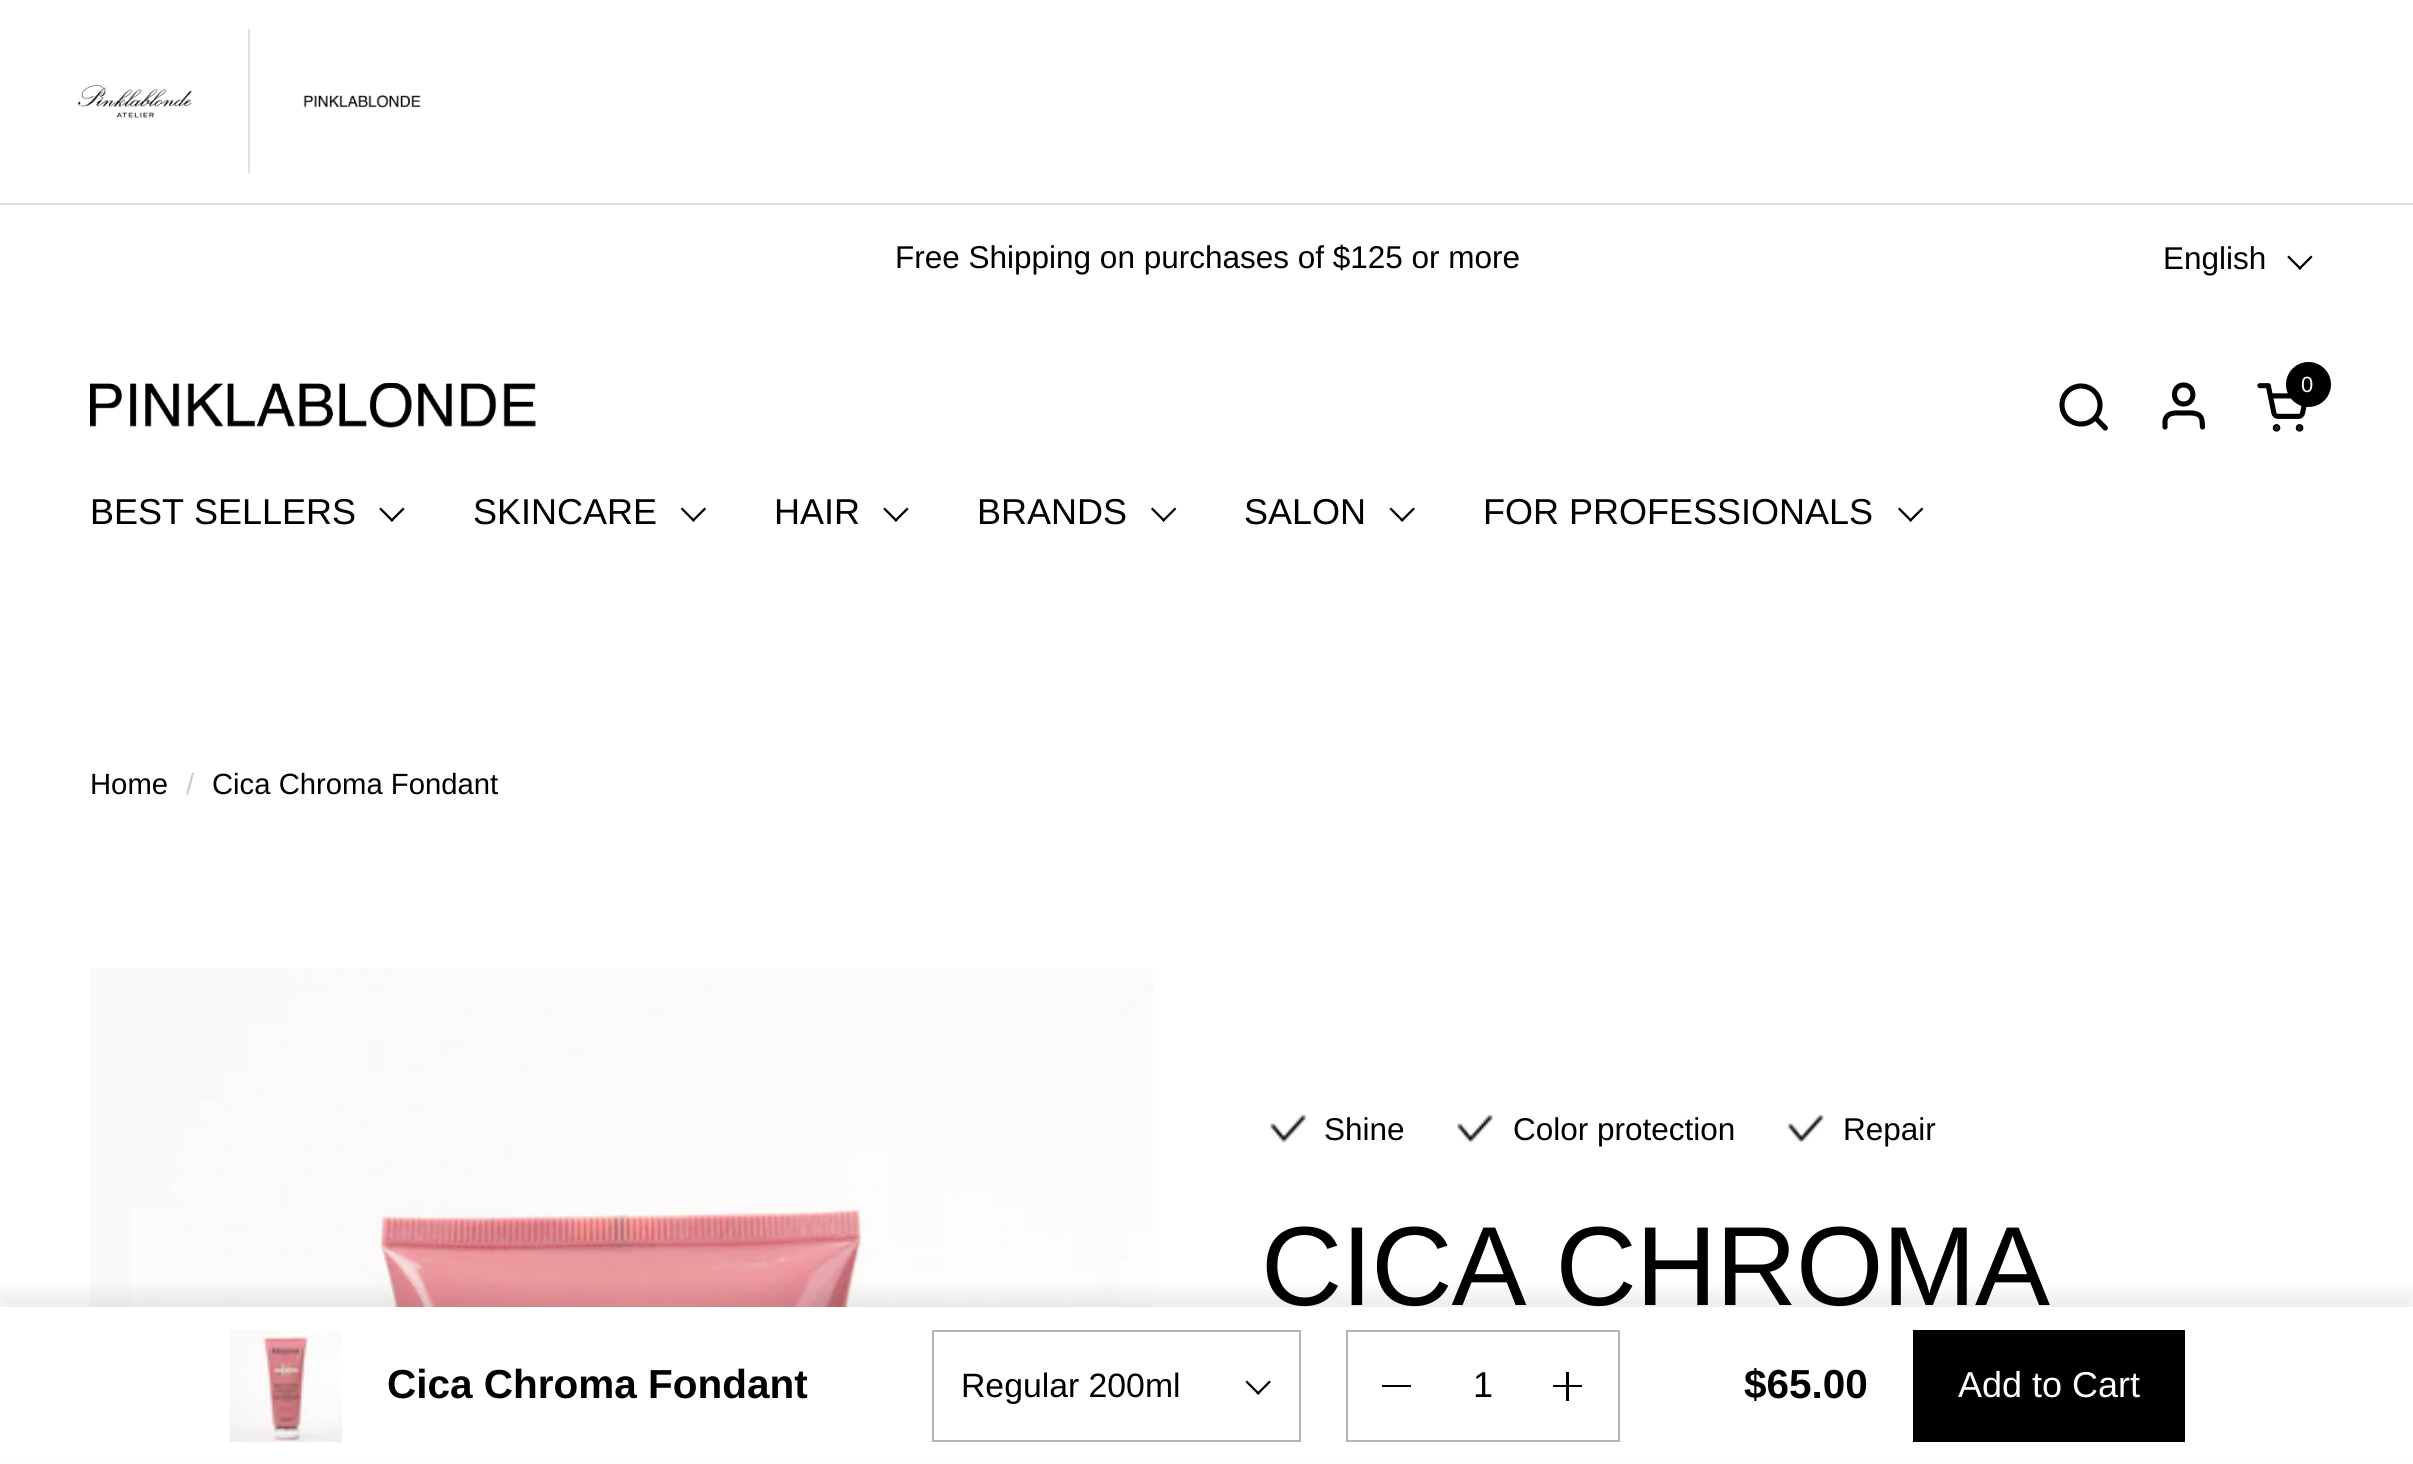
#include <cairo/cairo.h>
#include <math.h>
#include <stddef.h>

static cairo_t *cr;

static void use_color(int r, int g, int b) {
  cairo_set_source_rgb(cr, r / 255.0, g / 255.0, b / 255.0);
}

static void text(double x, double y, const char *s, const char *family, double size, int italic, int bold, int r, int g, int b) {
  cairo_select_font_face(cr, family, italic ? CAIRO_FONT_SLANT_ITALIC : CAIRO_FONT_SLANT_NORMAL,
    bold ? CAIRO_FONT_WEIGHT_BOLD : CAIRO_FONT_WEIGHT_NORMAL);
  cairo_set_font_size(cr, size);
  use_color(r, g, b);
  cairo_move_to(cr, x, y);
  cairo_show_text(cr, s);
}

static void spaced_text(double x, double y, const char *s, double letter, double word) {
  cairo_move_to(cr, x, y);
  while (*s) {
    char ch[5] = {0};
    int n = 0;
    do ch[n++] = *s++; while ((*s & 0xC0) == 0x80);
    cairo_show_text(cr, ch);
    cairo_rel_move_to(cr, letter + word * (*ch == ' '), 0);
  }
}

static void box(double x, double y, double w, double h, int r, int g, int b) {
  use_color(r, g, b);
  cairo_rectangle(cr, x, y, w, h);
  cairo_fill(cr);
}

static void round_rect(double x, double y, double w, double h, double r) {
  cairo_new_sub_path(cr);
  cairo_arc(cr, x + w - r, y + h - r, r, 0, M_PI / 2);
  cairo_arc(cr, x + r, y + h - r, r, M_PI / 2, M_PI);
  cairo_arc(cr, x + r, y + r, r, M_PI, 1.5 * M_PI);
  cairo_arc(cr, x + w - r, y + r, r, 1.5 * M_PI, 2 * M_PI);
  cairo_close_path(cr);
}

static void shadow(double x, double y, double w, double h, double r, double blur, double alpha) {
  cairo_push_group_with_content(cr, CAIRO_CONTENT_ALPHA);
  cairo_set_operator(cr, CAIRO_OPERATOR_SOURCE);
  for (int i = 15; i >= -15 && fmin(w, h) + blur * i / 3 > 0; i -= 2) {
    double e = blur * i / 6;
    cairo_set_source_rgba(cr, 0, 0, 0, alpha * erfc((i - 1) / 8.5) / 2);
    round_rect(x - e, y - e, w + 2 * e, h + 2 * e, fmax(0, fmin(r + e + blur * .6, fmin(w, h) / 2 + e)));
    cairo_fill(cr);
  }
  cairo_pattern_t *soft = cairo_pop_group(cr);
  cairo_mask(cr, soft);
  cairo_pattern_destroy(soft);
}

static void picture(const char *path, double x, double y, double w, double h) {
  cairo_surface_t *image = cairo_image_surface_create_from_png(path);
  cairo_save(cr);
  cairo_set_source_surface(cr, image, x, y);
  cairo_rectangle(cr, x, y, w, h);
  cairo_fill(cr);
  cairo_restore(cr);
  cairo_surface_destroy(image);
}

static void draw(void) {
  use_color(255, 255, 255);
  cairo_paint(cr);
  box(0, 203, 2413, 2, 225, 225, 225);
  picture("img_01.png", 77, 85, 115, 33);
  box(248, 29, 2, 144, 225, 225, 225);
  picture("img_02.png", 303, 95, 118, 13);
  picture("img_03.png", 2287, 255, 26, 15);
  picture("img_04.png", 90, 383, 446, 45);
  cairo_arc(cr, 2081, 405, 19, 0, 2 * M_PI);
  use_color(0, 0, 0);
  cairo_set_line_width(cr, 5.1);
  cairo_stroke(cr);
  cairo_new_path(cr);
  cairo_move_to(cr, 2098, 417);
  cairo_line_to(cr, 2096, 415.5);
  cairo_line_to(cr, 2092.5, 419);
  cairo_line_to(cr, 2094.5, 420.5);
  cairo_close_path(cr);
  cairo_move_to(cr, 2103.5, 430);
  cairo_curve_to(cr, 2106, 432, 2109.5, 428.5, 2107, 426);
  cairo_close_path(cr);
  cairo_move_to(cr, 2094.5, 420.5);
  cairo_line_to(cr, 2103.5, 430);
  cairo_line_to(cr, 2107, 426);
  cairo_line_to(cr, 2098, 417);
  cairo_close_path(cr);
  cairo_fill(cr);
  cairo_new_path(cr);
  cairo_move_to(cr, 2202.5, 427);
  cairo_line_to(cr, 2202, 420.5);
  cairo_curve_to(cr, 2200.5, 411.5, 2190.5, 413, 2183.5, 413);
  cairo_curve_to(cr, 2176.5, 413, 2167, 411.5, 2165, 420.5);
  cairo_line_to(cr, 2165, 427);
  cairo_move_to(cr, 2183.5, 404);
  cairo_curve_to(cr, 2196, 404, 2196, 385, 2183.5, 385);
  cairo_curve_to(cr, 2171.5, 385, 2171.5, 404, 2183.5, 404);
  cairo_close_path(cr);
  cairo_set_line_cap(cr, CAIRO_LINE_CAP_ROUND);
  cairo_set_line_join(cr, CAIRO_LINE_JOIN_ROUND);
  cairo_stroke(cr);
  cairo_arc(cr, 2308.5, 384.5, 22.5, 0, 2 * M_PI);
  cairo_fill(cr);
  picture("img_03.png", 379, 507, 26, 15);
  picture("img_06.png", 680, 507, 26, 15);
  picture("img_03.png", 883, 507, 26, 15);
  picture("img_07.png", 1151, 507, 26, 15);
  picture("img_08.png", 1389, 507, 26, 15);
  picture("img_07.png", 1898, 507, 26, 15);
  picture("img_09.png", 90, 968, 1063, 339);
  picture("img_10.png", 1270, 1114, 36, 29);
  picture("img_11.png", 1457, 1114, 36, 29);
  picture("img_12.png", 1787, 1114, 37, 29);
  use_color(0, 0, 0);
  shadow(0, 1294, 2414, 157, 0, 9, 0.08);
  box(0, 1307, 2413, 154, 255, 255, 255);
  picture("img_13.png", 229, 1330, 113, 113);
  picture("img_14.png", 1245, 1380, 26, 15);
  cairo_rectangle(cr, 933, 1331, 367, 110);
  use_color(179, 179, 179);
  cairo_set_line_width(cr, 2);
  cairo_set_line_cap(cr, CAIRO_LINE_CAP_BUTT);
  cairo_set_line_join(cr, CAIRO_LINE_JOIN_MITER);
  cairo_stroke(cr);
  cairo_rectangle(cr, 1347, 1331, 272, 110);
  cairo_stroke(cr);
  box(1382, 1385, 29, 2, 0, 0, 0);
  box(1566, 1372, 3, 29, 0, 0, 0);
  box(1553, 1385, 29, 2, 0, 0, 0);
  box(1913, 1330, 272, 112, 0, 0, 0);
  text(895, 268, "Free Shipping on purchases of $125 or more", "Liberation Sans", 31.5, 0, 0, 0, 0, 0);
  text(2163, 269, "English", "Liberation Sans", 31.5, 0, 0, 0, 0, 0);
  text(2301, 392, "0", "Liberation Sans", 22, 0, 0, 255, 255, 255);
  picture("img_05.png", 2257, 383, 50, 49);
  text(90, 524, "BEST SELLERS", "Liberation Sans", 36, 0, 0, 0, 0, 0);
  text(473, 524, "SKINCARE", "Liberation Sans", 36, 0, 0, 0, 0, 0);
  text(774, 524, "HAIR", "Liberation Sans", 36, 0, 0, 0, 0, 0);
  text(977, 524, "BRANDS", "Liberation Sans", 36, 0, 0, 0, 0, 0);
  text(1244, 524, "SALON", "Liberation Sans", 36, 0, 0, 0, 0, 0);
  text(1483, 524, "FOR PROFESSIONALS", "Liberation Sans", 36, 0, 0, 0, 0, 0);
  text(90, 794, "Home", "Liberation Sans", 29.25, 0, 0, 0, 0, 0);
  text(186, 794, "/", "Liberation Sans", 29.25, 0, 0, 204, 204, 204);
  text(212, 794, "Cica Chroma Fondant", "Liberation Sans", 29.25, 0, 0, 0, 0, 0);
  text(1324, 1140, "Shine", "Liberation Sans", 31.5, 0, 0, 0, 0, 0);
  text(1513, 1140, "Color protection", "Liberation Sans", 31.5, 0, 0, 0, 0, 0);
  text(1843, 1140, "Repair", "Liberation Sans", 31.5, 0, 0, 0, 0, 0);
  cairo_set_font_size(cr, 112.5);
  spaced_text(1261, 1305, "CICA CHROMA", -1.1, 0);
  text(387, 1398, "Cica Chroma Fondant", "Liberation Sans", 40.5, 0, 1, 0, 0, 0);
  text(961, 1397, "Regular 200ml", "Liberation Sans", 33.75, 0, 0, 0, 0, 0);
  text(1473, 1397, "1", "Liberation Sans", 36, 0, 0, 0, 0, 0);
  text(1744, 1398, "$65.00", "Liberation Sans", 40.5, 0, 1, 0, 0, 0);
  text(1958, 1397, "Add to Cart", "Liberation Sans", 36, 0, 0, 255, 255, 255);
}

int main(void) {
  cairo_surface_t *surface = cairo_image_surface_create(CAIRO_FORMAT_RGB24, 2413, 1464);
  cr = cairo_create(surface);
  cairo_font_options_t *options = cairo_font_options_create();
  cairo_font_options_set_hint_metrics(options, CAIRO_HINT_METRICS_OFF);
  cairo_font_options_set_hint_style(options, CAIRO_HINT_STYLE_NONE);
  cairo_set_font_options(cr, options);
  cairo_set_miter_limit(cr, 4);
  draw();
  cairo_surface_write_to_png(surface, "out.png");
  cairo_font_options_destroy(options);
  cairo_destroy(cr);
  cairo_surface_destroy(surface);
  return 0;
}
